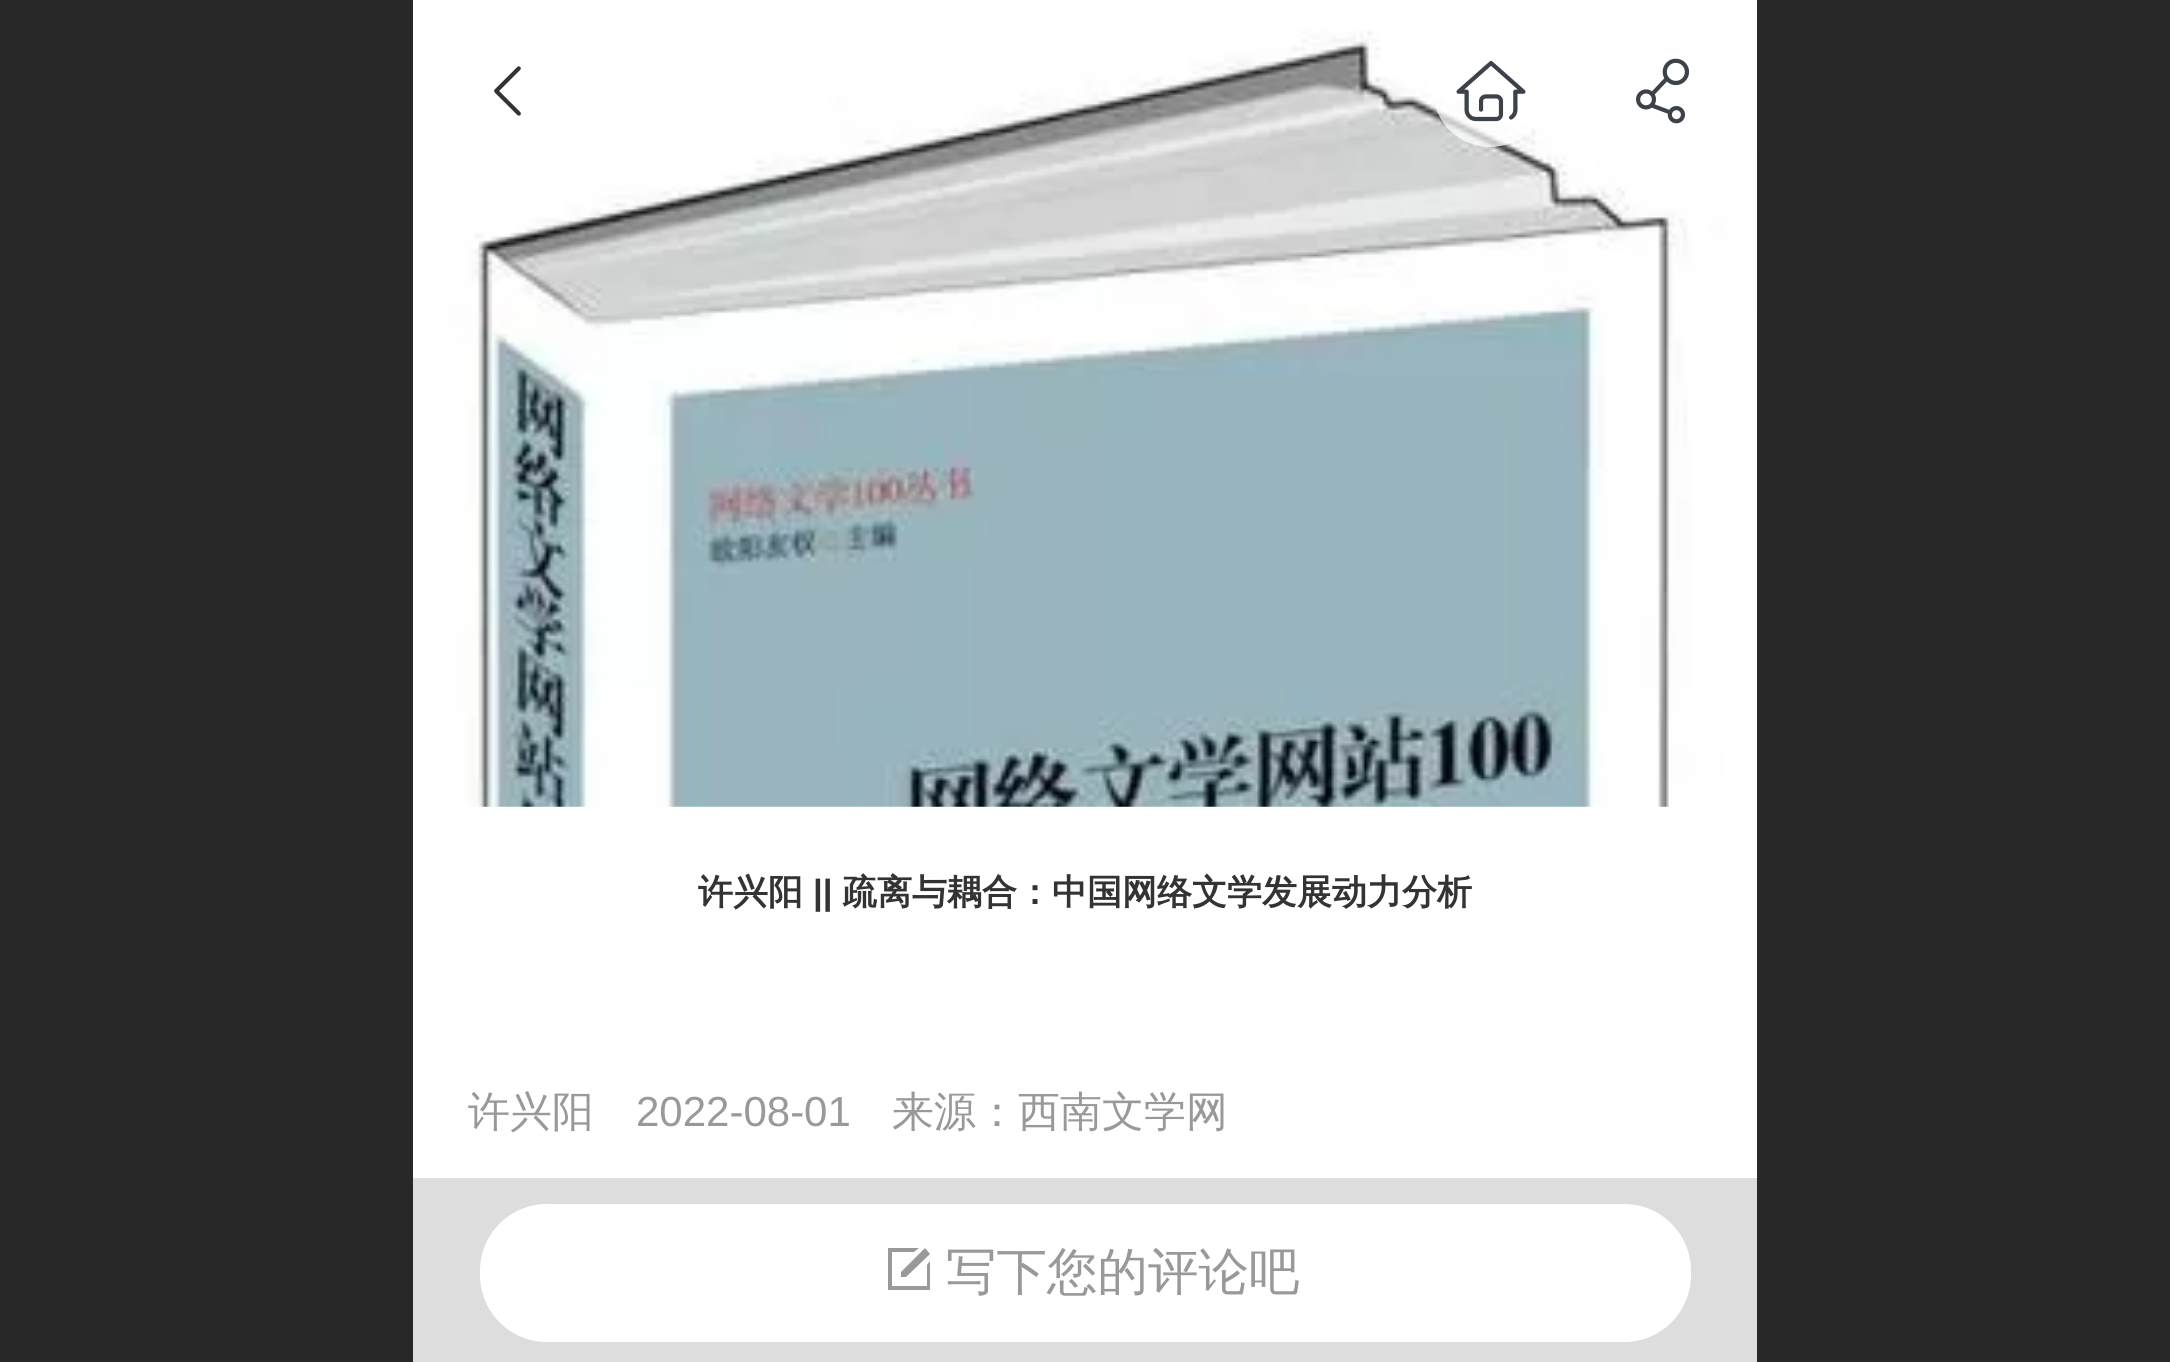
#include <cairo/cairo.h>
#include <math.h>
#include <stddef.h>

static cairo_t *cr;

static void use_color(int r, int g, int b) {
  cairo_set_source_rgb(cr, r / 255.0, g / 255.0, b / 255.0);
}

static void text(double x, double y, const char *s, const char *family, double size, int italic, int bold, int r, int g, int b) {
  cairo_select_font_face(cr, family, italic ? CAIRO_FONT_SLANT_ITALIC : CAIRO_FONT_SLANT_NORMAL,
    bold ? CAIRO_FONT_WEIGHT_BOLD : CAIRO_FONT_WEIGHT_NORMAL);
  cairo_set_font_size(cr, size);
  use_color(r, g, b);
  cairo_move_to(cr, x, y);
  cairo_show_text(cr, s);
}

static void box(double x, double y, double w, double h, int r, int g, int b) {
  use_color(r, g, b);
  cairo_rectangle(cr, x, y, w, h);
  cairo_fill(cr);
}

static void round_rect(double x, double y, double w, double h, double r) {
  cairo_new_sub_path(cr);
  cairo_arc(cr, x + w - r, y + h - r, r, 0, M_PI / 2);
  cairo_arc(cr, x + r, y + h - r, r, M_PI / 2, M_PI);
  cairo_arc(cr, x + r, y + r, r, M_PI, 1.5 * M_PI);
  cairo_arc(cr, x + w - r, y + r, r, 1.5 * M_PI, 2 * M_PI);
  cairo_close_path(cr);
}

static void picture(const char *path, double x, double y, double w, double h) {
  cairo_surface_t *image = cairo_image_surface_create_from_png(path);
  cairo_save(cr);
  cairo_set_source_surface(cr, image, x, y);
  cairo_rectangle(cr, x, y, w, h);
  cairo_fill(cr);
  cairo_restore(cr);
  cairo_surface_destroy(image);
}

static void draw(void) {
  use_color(255, 255, 255);
  cairo_paint(cr);
  box(0, 0, 413, 1362, 40, 40, 40);
  picture("img_04.png", 413, 0, 1344, 807);
  picture("img_01.png", 494, 66, 27, 50);
  cairo_set_source_rgba(cr, 1, 1, 1, 0.7);
  cairo_arc(cr, 1490, 90, 57, 0, 2 * M_PI);
  cairo_fill(cr);
  picture("img_02.png", 1456, 60, 70, 62);
  picture("img_03.png", 1636, 58, 54, 66);
  box(413, 1178, 1344, 184, 221, 221, 221);
  use_color(255, 255, 255);
  round_rect(480, 1204, 1211, 138, 67);
  cairo_fill(cr);
  use_color(153, 153, 153);
  cairo_new_path(cr);
  cairo_move_to(cr, 927, 1265);
  cairo_line_to(cr, 927, 1286);
  cairo_line_to(cr, 892, 1286);
  cairo_line_to(cr, 892, 1252);
  cairo_line_to(cr, 914, 1252);
  cairo_line_to(cr, 919, 1248);
  cairo_line_to(cr, 888, 1248);
  cairo_line_to(cr, 888, 1290);
  cairo_line_to(cr, 930, 1290);
  cairo_line_to(cr, 930, 1261);
  cairo_close_path(cr);
  cairo_move_to(cr, 901, 1272);
  cairo_line_to(cr, 901, 1277);
  cairo_line_to(cr, 906, 1277);
  cairo_line_to(cr, 930, 1254);
  cairo_line_to(cr, 925, 1248);
  cairo_close_path(cr);
  cairo_fill(cr);
  box(1757, 0, 413, 1362, 40, 40, 40);
  text(698, 904, "许兴阳", "WenQuanYi Zen Hei", 35, 0, 1, 51, 51, 51);
  text(813, 904, "||", "Liberation Sans", 35, 0, 1, 51, 51, 51);
  text(842, 904, "疏离与耦合：中国网络文学发展动力分析", "WenQuanYi Zen Hei", 35, 0, 1, 51, 51, 51);
  text(468, 1126, "许兴阳", "WenQuanYi Zen Hei Medium", 42, 0, 0, 153, 153, 153);
  text(636, 1126, "2022-08-01", "Liberation Sans", 42, 0, 0, 153, 153, 153);
  text(892, 1126, "来源：西南文学网", "WenQuanYi Zen Hei Medium", 42, 0, 0, 153, 153, 153);
  text(946, 1289, "写下您的评论吧", "WenQuanYi Zen Hei Medium", 50.5, 0, 0, 153, 153, 153);
}

int main(void) {
  cairo_surface_t *surface = cairo_image_surface_create(CAIRO_FORMAT_RGB24, 2170, 1362);
  cr = cairo_create(surface);
  cairo_font_options_t *options = cairo_font_options_create();
  cairo_font_options_set_hint_metrics(options, CAIRO_HINT_METRICS_OFF);
  cairo_font_options_set_hint_style(options, CAIRO_HINT_STYLE_NONE);
  cairo_set_font_options(cr, options);
  cairo_set_miter_limit(cr, 4);
  draw();
  cairo_surface_write_to_png(surface, "out.png");
  cairo_font_options_destroy(options);
  cairo_destroy(cr);
  cairo_surface_destroy(surface);
  return 0;
}
